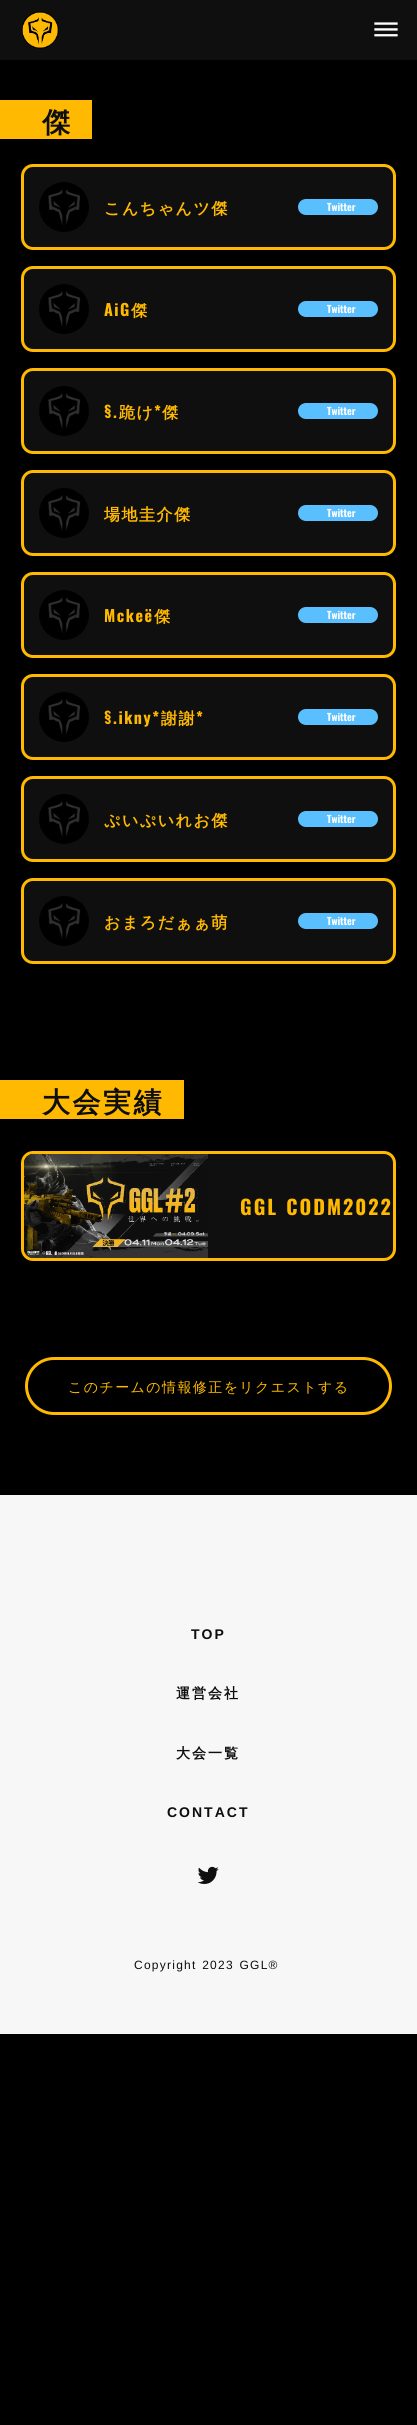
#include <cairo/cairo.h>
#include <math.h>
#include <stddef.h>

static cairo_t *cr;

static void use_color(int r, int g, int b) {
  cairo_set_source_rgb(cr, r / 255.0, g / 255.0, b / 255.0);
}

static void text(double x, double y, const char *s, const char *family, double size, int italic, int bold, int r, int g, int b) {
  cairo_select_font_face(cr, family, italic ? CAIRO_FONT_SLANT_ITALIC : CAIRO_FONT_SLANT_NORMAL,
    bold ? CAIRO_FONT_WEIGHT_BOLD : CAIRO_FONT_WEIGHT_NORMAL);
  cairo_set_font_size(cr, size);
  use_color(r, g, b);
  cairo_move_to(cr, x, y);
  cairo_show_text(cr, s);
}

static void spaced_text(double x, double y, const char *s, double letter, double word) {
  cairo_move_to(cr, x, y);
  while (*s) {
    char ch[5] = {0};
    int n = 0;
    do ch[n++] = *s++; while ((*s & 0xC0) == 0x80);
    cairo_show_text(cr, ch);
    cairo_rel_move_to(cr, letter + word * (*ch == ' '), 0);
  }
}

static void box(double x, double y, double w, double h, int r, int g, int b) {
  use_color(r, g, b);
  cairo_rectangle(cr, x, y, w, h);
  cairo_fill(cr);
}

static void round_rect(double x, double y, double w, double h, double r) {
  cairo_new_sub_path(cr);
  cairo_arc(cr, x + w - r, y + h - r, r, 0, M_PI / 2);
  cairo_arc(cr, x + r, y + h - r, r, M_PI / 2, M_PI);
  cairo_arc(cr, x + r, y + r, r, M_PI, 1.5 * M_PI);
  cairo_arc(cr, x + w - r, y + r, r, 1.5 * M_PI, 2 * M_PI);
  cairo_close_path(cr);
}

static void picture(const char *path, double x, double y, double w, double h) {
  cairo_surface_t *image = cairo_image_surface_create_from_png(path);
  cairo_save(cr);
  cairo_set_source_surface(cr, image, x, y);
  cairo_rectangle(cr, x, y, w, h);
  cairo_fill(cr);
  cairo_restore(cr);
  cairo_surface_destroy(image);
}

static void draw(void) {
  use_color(0, 0, 0);
  cairo_paint(cr);
  box(0, 0, 417, 60, 15, 15, 15);
  picture("img_01.png", 21, 11, 38, 38);
  picture("img_02.png", 374, 22, 24, 15);
  box(0, 100, 92, 39, 255, 185, 0);
  use_color(15, 15, 15);
  round_rect(22.5, 165.5, 372, 83, 10.5);
  cairo_fill_preserve(cr);
  use_color(255, 185, 0);
  cairo_set_line_width(cr, 3);
  cairo_stroke(cr);
  picture("img_03.png", 39, 182, 50, 50);
  use_color(90, 191, 255);
  round_rect(298, 199, 80, 16, 8);
  cairo_fill(cr);
  use_color(15, 15, 15);
  round_rect(22.5, 267.5, 372, 83, 10.5);
  cairo_fill_preserve(cr);
  use_color(255, 185, 0);
  cairo_stroke(cr);
  picture("img_03.png", 39, 284, 50, 50);
  use_color(90, 191, 255);
  round_rect(298, 301, 80, 16, 8);
  cairo_fill(cr);
  use_color(15, 15, 15);
  round_rect(22.5, 369.5, 372, 83, 10.5);
  cairo_fill_preserve(cr);
  use_color(255, 185, 0);
  cairo_stroke(cr);
  picture("img_03.png", 39, 386, 50, 50);
  use_color(90, 191, 255);
  round_rect(298, 403, 80, 16, 8);
  cairo_fill(cr);
  use_color(15, 15, 15);
  round_rect(22.5, 471.5, 372, 83, 10.5);
  cairo_fill_preserve(cr);
  use_color(255, 185, 0);
  cairo_stroke(cr);
  picture("img_03.png", 39, 488, 50, 50);
  use_color(90, 191, 255);
  round_rect(298, 505, 80, 16, 8);
  cairo_fill(cr);
  use_color(15, 15, 15);
  round_rect(22.5, 573.5, 372, 83, 10.5);
  cairo_fill_preserve(cr);
  use_color(255, 185, 0);
  cairo_stroke(cr);
  picture("img_03.png", 39, 590, 50, 50);
  use_color(90, 191, 255);
  round_rect(298, 607, 80, 16, 8);
  cairo_fill(cr);
  use_color(15, 15, 15);
  round_rect(22.5, 675.5, 372, 83, 10.5);
  cairo_fill_preserve(cr);
  use_color(255, 185, 0);
  cairo_stroke(cr);
  picture("img_03.png", 39, 692, 50, 50);
  use_color(90, 191, 255);
  round_rect(298, 709, 80, 16, 8);
  cairo_fill(cr);
  use_color(15, 15, 15);
  round_rect(22.5, 777.5, 372, 83, 10.5);
  cairo_fill_preserve(cr);
  use_color(255, 185, 0);
  cairo_stroke(cr);
  picture("img_03.png", 39, 794, 50, 50);
  use_color(90, 191, 255);
  round_rect(298, 811, 80, 16, 8);
  cairo_fill(cr);
  use_color(15, 15, 15);
  round_rect(22.5, 879.5, 372, 83, 10.5);
  cairo_fill_preserve(cr);
  use_color(255, 185, 0);
  cairo_stroke(cr);
  picture("img_03.png", 39, 896, 50, 50);
  use_color(90, 191, 255);
  round_rect(298, 913, 80, 16, 8);
  cairo_fill(cr);
  box(0, 1080, 184, 39, 255, 185, 0);
  use_color(15, 15, 15);
  round_rect(22.5, 1152.5, 372, 107, 10.5);
  cairo_fill_preserve(cr);
  use_color(255, 185, 0);
  cairo_stroke(cr);
  picture("img_04.png", 24, 1154, 184, 104);
  round_rect(26.5, 1358.5, 364, 55, 27.5);
  cairo_stroke(cr);
  box(0, 1495, 417, 539, 247, 247, 247);
  picture("img_05.png", 197, 1866, 22, 18);
  cairo_select_font_face(cr, "WenQuanYi Zen Hei", CAIRO_FONT_SLANT_NORMAL, CAIRO_FONT_WEIGHT_BOLD);
  cairo_set_font_size(cr, 28);
  use_color(14, 14, 14);
  spaced_text(42, 132, "傑", 2.5, 0);
  cairo_set_font_size(cr, 16);
  use_color(255, 185, 0);
  spaced_text(104, 214, "こんちゃんツ傑", 1.5, 0);
  text(327, 211, "Twitter", "Oswald", 10, 0, 1, 255, 255, 255);
  cairo_set_font_size(cr, 16);
  use_color(255, 185, 0);
  spaced_text(104, 316, "AiG", 1.5, 0);
  cairo_select_font_face(cr, "WenQuanYi Zen Hei", CAIRO_FONT_SLANT_NORMAL, CAIRO_FONT_WEIGHT_BOLD);
  spaced_text(131, 316, "傑", 1.5, 0);
  text(327, 313, "Twitter", "Oswald", 10, 0, 1, 255, 255, 255);
  cairo_set_font_size(cr, 16);
  use_color(255, 185, 0);
  spaced_text(104, 418, "§.", 1.5, 0);
  cairo_select_font_face(cr, "WenQuanYi Zen Hei", CAIRO_FONT_SLANT_NORMAL, CAIRO_FONT_WEIGHT_BOLD);
  spaced_text(119, 418, "跪け", 1.5, 0);
  cairo_select_font_face(cr, "Oswald", CAIRO_FONT_SLANT_NORMAL, CAIRO_FONT_WEIGHT_BOLD);
  spaced_text(154, 418, "*", 1.5, 0);
  cairo_select_font_face(cr, "WenQuanYi Zen Hei", CAIRO_FONT_SLANT_NORMAL, CAIRO_FONT_WEIGHT_BOLD);
  spaced_text(162, 418, "傑", 1.5, 0);
  text(327, 415, "Twitter", "Oswald", 10, 0, 1, 255, 255, 255);
  cairo_select_font_face(cr, "WenQuanYi Zen Hei", CAIRO_FONT_SLANT_NORMAL, CAIRO_FONT_WEIGHT_BOLD);
  cairo_set_font_size(cr, 16);
  use_color(255, 185, 0);
  spaced_text(104, 520, "場地圭介傑", 1.5, 0);
  text(327, 517, "Twitter", "Oswald", 10, 0, 1, 255, 255, 255);
  cairo_set_font_size(cr, 16);
  use_color(255, 185, 0);
  spaced_text(104, 622, "Mckeё", 1.5, 0);
  cairo_select_font_face(cr, "WenQuanYi Zen Hei", CAIRO_FONT_SLANT_NORMAL, CAIRO_FONT_WEIGHT_BOLD);
  spaced_text(154, 622, "傑", 1.5, 0);
  text(327, 619, "Twitter", "Oswald", 10, 0, 1, 255, 255, 255);
  cairo_set_font_size(cr, 16);
  use_color(255, 185, 0);
  spaced_text(104, 724, "§.ikny*", 1.5, 0);
  cairo_select_font_face(cr, "WenQuanYi Zen Hei", CAIRO_FONT_SLANT_NORMAL, CAIRO_FONT_WEIGHT_BOLD);
  spaced_text(161, 724, "謝謝", 1.5, 0);
  cairo_select_font_face(cr, "Oswald", CAIRO_FONT_SLANT_NORMAL, CAIRO_FONT_WEIGHT_BOLD);
  spaced_text(196, 724, "*", 1.5, 0);
  text(327, 721, "Twitter", "Oswald", 10, 0, 1, 255, 255, 255);
  cairo_select_font_face(cr, "WenQuanYi Zen Hei", CAIRO_FONT_SLANT_NORMAL, CAIRO_FONT_WEIGHT_BOLD);
  cairo_set_font_size(cr, 16);
  use_color(255, 185, 0);
  spaced_text(104, 826, "ぷいぷいれお傑", 1.5, 0);
  text(327, 823, "Twitter", "Oswald", 10, 0, 1, 255, 255, 255);
  cairo_select_font_face(cr, "WenQuanYi Zen Hei", CAIRO_FONT_SLANT_NORMAL, CAIRO_FONT_WEIGHT_BOLD);
  cairo_set_font_size(cr, 16);
  use_color(255, 185, 0);
  spaced_text(104, 928, "おまろだぁぁ萌", 1.5, 0);
  text(327, 925, "Twitter", "Oswald", 10, 0, 1, 255, 255, 255);
  cairo_select_font_face(cr, "WenQuanYi Zen Hei", CAIRO_FONT_SLANT_NORMAL, CAIRO_FONT_WEIGHT_BOLD);
  cairo_set_font_size(cr, 28);
  use_color(14, 14, 14);
  spaced_text(42, 1112, "大会実績", 2.5, 0);
  cairo_select_font_face(cr, "Oswald", CAIRO_FONT_SLANT_NORMAL, CAIRO_FONT_WEIGHT_BOLD);
  cairo_set_font_size(cr, 20);
  use_color(255, 185, 0);
  spaced_text(240, 1215, "GGL CODM2022", 2, 1);
  cairo_select_font_face(cr, "WenQuanYi Zen Hei Medium", CAIRO_FONT_SLANT_NORMAL, CAIRO_FONT_WEIGHT_NORMAL);
  cairo_set_font_size(cr, 14);
  spaced_text(68, 1392, "このチームの情報修正をリクエストする", 1.4, 0);
  cairo_select_font_face(cr, "Liberation Sans", CAIRO_FONT_SLANT_NORMAL, CAIRO_FONT_WEIGHT_BOLD);
  use_color(14, 14, 14);
  spaced_text(191, 1639, "TOP", 2, 0);
  cairo_select_font_face(cr, "WenQuanYi Zen Hei", CAIRO_FONT_SLANT_NORMAL, CAIRO_FONT_WEIGHT_BOLD);
  spaced_text(176, 1698, "運営会社", 2, 0);
  spaced_text(176, 1758, "大会一覧", 2, 0);
  cairo_select_font_face(cr, "Liberation Sans", CAIRO_FONT_SLANT_NORMAL, CAIRO_FONT_WEIGHT_BOLD);
  spaced_text(167, 1817, "CONTACT", 2, 0);
  cairo_select_font_face(cr, "Liberation Sans", CAIRO_FONT_SLANT_NORMAL, CAIRO_FONT_WEIGHT_NORMAL);
  cairo_set_font_size(cr, 12);
  spaced_text(134, 1969, "Copyright 2023 GGL®", 1.25, 1);
}

int main(void) {
  cairo_surface_t *surface = cairo_image_surface_create(CAIRO_FORMAT_RGB24, 417, 2425);
  cr = cairo_create(surface);
  cairo_font_options_t *options = cairo_font_options_create();
  cairo_font_options_set_hint_metrics(options, CAIRO_HINT_METRICS_OFF);
  cairo_font_options_set_hint_style(options, CAIRO_HINT_STYLE_NONE);
  cairo_set_font_options(cr, options);
  cairo_set_miter_limit(cr, 4);
  draw();
  cairo_surface_write_to_png(surface, "out.png");
  cairo_font_options_destroy(options);
  cairo_destroy(cr);
  cairo_surface_destroy(surface);
  return 0;
}
